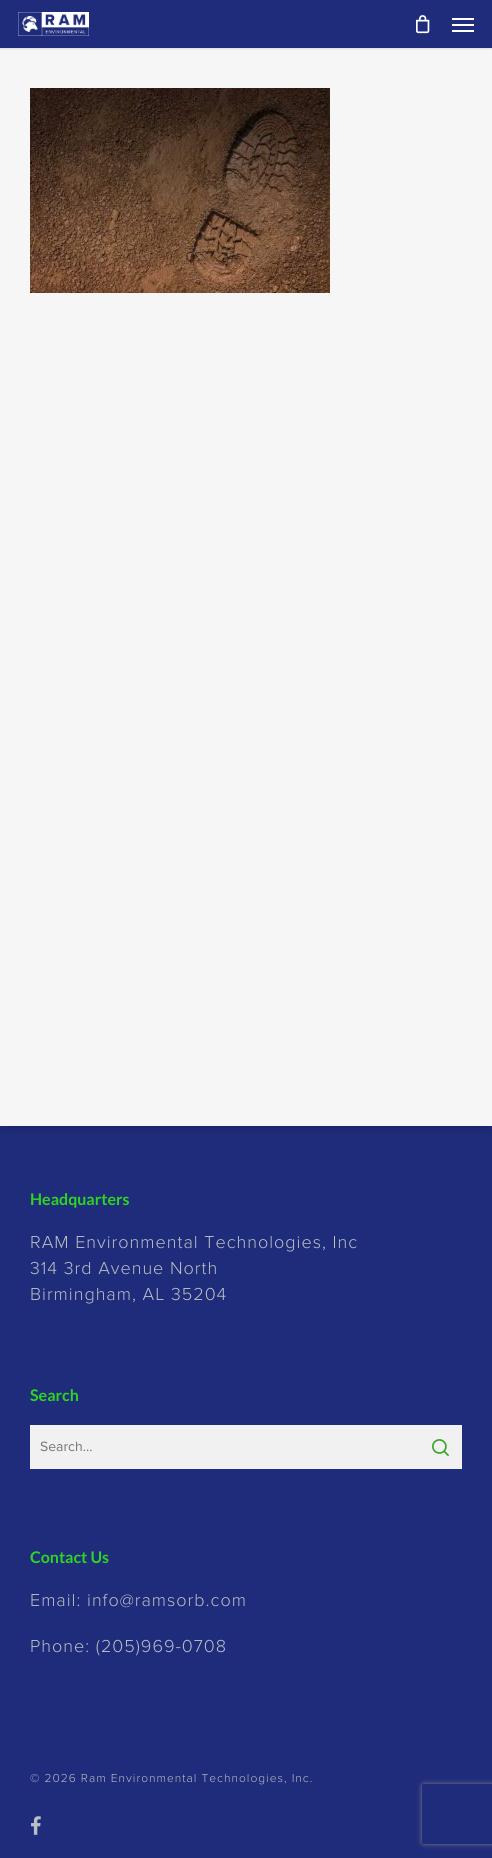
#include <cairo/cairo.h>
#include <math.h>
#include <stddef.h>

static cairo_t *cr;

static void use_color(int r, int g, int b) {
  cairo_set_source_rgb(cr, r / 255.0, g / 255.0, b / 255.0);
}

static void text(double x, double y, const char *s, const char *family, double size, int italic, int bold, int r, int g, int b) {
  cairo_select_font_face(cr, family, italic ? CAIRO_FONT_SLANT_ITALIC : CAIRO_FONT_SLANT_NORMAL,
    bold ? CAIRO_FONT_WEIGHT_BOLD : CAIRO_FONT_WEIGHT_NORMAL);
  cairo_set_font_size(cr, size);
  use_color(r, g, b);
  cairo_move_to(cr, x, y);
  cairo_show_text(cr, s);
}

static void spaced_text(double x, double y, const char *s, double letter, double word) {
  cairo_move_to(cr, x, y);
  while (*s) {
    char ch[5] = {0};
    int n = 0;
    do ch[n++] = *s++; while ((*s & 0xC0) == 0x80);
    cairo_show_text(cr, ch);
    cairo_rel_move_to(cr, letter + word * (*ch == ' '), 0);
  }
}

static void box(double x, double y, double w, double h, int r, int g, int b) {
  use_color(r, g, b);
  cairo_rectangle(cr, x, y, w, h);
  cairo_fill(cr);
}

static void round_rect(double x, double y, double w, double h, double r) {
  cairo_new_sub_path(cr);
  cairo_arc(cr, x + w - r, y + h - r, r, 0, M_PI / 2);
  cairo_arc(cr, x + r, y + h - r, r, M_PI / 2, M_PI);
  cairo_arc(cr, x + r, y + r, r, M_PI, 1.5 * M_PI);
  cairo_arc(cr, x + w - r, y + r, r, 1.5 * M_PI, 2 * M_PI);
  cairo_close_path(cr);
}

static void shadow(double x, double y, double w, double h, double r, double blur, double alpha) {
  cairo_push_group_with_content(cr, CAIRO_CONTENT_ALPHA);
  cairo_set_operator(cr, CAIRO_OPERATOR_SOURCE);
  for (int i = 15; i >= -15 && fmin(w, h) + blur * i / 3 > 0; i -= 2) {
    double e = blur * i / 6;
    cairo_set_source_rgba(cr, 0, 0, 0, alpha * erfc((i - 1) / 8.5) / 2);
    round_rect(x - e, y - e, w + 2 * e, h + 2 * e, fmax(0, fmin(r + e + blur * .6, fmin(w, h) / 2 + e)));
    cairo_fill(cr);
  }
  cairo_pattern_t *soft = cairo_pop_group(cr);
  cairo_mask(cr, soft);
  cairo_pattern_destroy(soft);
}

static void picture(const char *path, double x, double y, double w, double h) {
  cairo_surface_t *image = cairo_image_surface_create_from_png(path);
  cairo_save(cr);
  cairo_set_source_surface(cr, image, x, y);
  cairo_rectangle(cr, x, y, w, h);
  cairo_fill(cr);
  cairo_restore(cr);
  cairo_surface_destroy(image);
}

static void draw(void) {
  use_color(31, 43, 123);
  cairo_paint(cr);
  use_color(0, 0, 0);
  shadow(3, 56, 486, 1072, 0, 4, 0.2);
  box(0, 48, 492, 1078, 246, 246, 246);
  cairo_save(cr);
  cairo_rectangle(cr, 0, 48, 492, 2);
  cairo_clip(cr);
  use_color(0, 0, 0);
  shadow(0, 0, 492, 48, 0, 1.5, 0.22);
  cairo_restore(cr);
  picture("img_01.png", 18, 12, 71, 24);
  picture("img_02.png", 416, 15, 14, 19);
  box(452, 18, 22, 2, 255, 255, 255);
  box(452, 30, 22, 2, 255, 255, 255);
  box(452, 24, 22, 2, 255, 255, 255);
  picture("img_03.png", 30, 88, 300, 205);
  box(30, 1425, 432, 44, 241, 241, 241);
  picture("img_04.png", 432, 1439, 17, 17);
  picture("img_05.png", 31, 1816, 10, 19);
  cairo_save(cr);
  cairo_set_fill_rule(cr, CAIRO_FILL_RULE_EVEN_ODD);
  cairo_new_path(cr);
  cairo_move_to(cr, 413, 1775);
  cairo_line_to(cr, 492, 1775);
  cairo_line_to(cr, 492, 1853);
  cairo_line_to(cr, 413, 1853);
  cairo_close_path(cr);
  cairo_move_to(cr, 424, 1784);
  cairo_line_to(cr, 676, 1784);
  cairo_curve_to(cr, 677, 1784, 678, 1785, 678, 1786);
  cairo_line_to(cr, 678, 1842);
  cairo_curve_to(cr, 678, 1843, 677, 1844, 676, 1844);
  cairo_line_to(cr, 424, 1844);
  cairo_curve_to(cr, 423, 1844, 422, 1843, 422, 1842);
  cairo_line_to(cr, 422, 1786);
  cairo_curve_to(cr, 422, 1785, 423, 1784, 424, 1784);
  cairo_close_path(cr);
  cairo_clip(cr);
  use_color(128, 128, 128);
  shadow(422, 1784, 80, 60, 2, 2.5, 1);
  cairo_restore(cr);
  text(30, 1205, "Headquarters", "Lato", 16, 0, 1, 44, 214, 32);
  cairo_select_font_face(cr, "Proxima Nova Light", CAIRO_FONT_SLANT_NORMAL, CAIRO_FONT_WEIGHT_NORMAL);
  cairo_set_font_size(cr, 18);
  use_color(184, 192, 194);
  spaced_text(30, 1248, "RAM Environmental Technologies, Inc", 1, 0);
  spaced_text(30, 1274, "314 3rd Avenue North", 1, 0);
  spaced_text(30, 1300, "Birmingham, AL 35204", 1, 0);
  text(30, 1401, "Search", "Lato", 16, 0, 1, 44, 214, 32);
  text(40, 1451, "Search...", "Proxima Nova", 14, 0, 0, 117, 117, 117);
  text(30, 1563, "Contact Us", "Lato", 16, 0, 1, 44, 214, 32);
  cairo_select_font_face(cr, "Proxima Nova Light", CAIRO_FONT_SLANT_NORMAL, CAIRO_FONT_WEIGHT_NORMAL);
  cairo_set_font_size(cr, 18);
  use_color(184, 192, 194);
  spaced_text(30, 1606, "Email: info@ramsorb.com", 1, 0);
  spaced_text(30, 1652, "Phone: (205)969-0708", 1, 0);
  cairo_set_font_size(cr, 12);
  spaced_text(30, 1782, "© 2026 Ram Environmental Technologies, Inc.", 1, 0);
}

int main(void) {
  cairo_surface_t *surface = cairo_image_surface_create(CAIRO_FORMAT_RGB24, 492, 1858);
  cr = cairo_create(surface);
  cairo_font_options_t *options = cairo_font_options_create();
  cairo_font_options_set_hint_metrics(options, CAIRO_HINT_METRICS_OFF);
  cairo_font_options_set_hint_style(options, CAIRO_HINT_STYLE_NONE);
  cairo_set_font_options(cr, options);
  cairo_set_miter_limit(cr, 4);
  draw();
  cairo_surface_write_to_png(surface, "out.png");
  cairo_font_options_destroy(options);
  cairo_destroy(cr);
  cairo_surface_destroy(surface);
  return 0;
}
